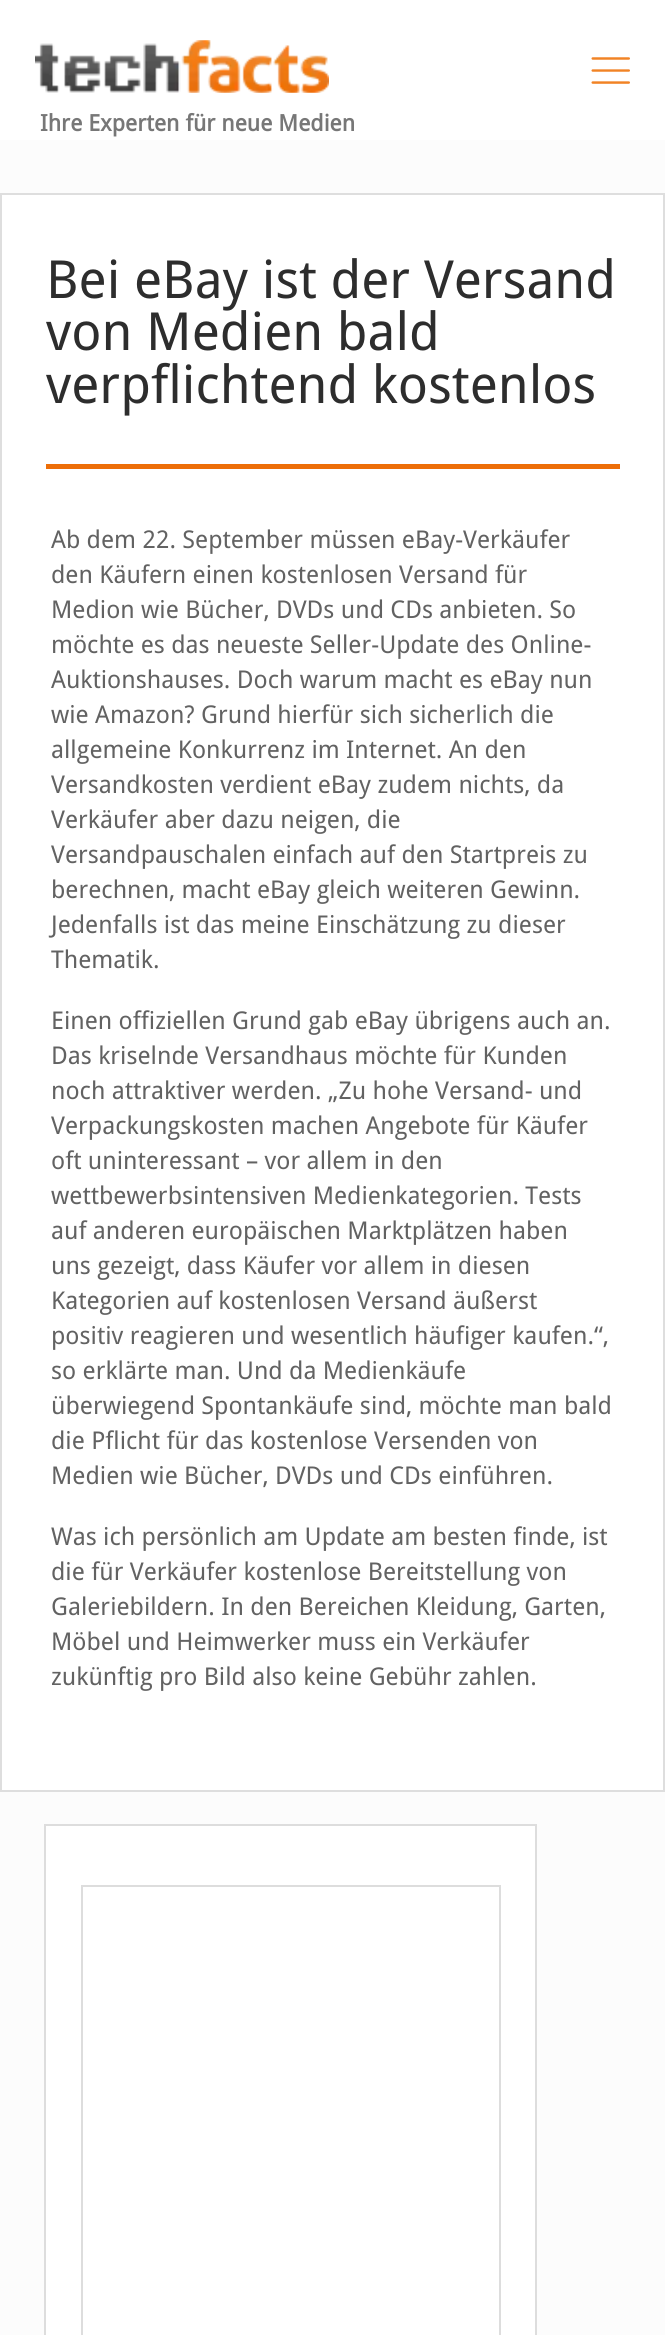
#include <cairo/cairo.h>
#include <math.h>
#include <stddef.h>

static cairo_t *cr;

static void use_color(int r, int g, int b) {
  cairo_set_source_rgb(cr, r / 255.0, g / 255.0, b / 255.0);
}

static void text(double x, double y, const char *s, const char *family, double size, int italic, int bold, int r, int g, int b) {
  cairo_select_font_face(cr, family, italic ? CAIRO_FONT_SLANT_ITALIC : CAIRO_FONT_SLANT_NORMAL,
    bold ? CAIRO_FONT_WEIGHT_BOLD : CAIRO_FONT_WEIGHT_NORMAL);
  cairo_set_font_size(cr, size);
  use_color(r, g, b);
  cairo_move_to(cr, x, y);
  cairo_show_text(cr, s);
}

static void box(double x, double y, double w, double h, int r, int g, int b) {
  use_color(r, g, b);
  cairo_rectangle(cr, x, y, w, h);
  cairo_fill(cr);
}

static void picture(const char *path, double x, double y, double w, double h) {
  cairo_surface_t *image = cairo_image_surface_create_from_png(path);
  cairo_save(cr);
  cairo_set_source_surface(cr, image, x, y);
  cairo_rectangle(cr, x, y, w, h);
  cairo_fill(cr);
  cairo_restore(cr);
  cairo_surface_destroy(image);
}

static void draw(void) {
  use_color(252, 252, 252);
  cairo_paint(cr);
  box(0, 0, 665, 140, 255, 255, 255);
  picture("img_01.png", 591, 57, 39, 27);
  picture("img_02.png", 35, 40, 294, 53);
  cairo_rectangle(cr, 1, 194, 663, 1597);
  cairo_fill_preserve(cr);
  use_color(222, 222, 222);
  cairo_stroke(cr);
  box(46, 464, 574, 5, 237, 110, 8);
  use_color(255, 255, 255);
  cairo_rectangle(cr, 45, 1825, 491, 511);
  cairo_fill_preserve(cr);
  use_color(221, 221, 221);
  cairo_stroke(cr);
  cairo_rectangle(cr, 82, 1886, 418, 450);
  cairo_stroke(cr);
  text(40, 131, "Ihre Experten für neue Medien", "Droid Sans", 22.75, 0, 1, 119, 119, 119);
  text(46, 298, "Bei eBay ist der Versand", "Droid Sans", 52.5, 0, 0, 45, 45, 45);
  text(46, 350, "von Medien bald", "Droid Sans", 52.5, 0, 0, 45, 45, 45);
  text(46, 403, "verpflichtend kostenlos", "Droid Sans", 52.5, 0, 0, 45, 45, 45);
  text(51, 548, "Ab dem 22. September müssen eBay-Verkäufer", "Droid Sans", 24.5, 0, 0, 98, 98, 98);
  text(51, 583, "den Käufern einen kostenlosen Versand für", "Droid Sans", 24.5, 0, 0, 98, 98, 98);
  text(51, 618, "Medion wie Bücher, DVDs und CDs anbieten. So", "Droid Sans", 24.5, 0, 0, 98, 98, 98);
  text(51, 653, "möchte es das neueste Seller-Update des Online-", "Droid Sans", 24.5, 0, 0, 98, 98, 98);
  text(51, 688, "Auktionshauses. Doch warum macht es eBay nun", "Droid Sans", 24.5, 0, 0, 98, 98, 98);
  text(51, 723, "wie Amazon? Grund hierfür sich sicherlich die", "Droid Sans", 24.5, 0, 0, 98, 98, 98);
  text(51, 758, "allgemeine Konkurrenz im Internet. An den", "Droid Sans", 24.5, 0, 0, 98, 98, 98);
  text(51, 793, "Versandkosten verdient eBay zudem nichts, da", "Droid Sans", 24.5, 0, 0, 98, 98, 98);
  text(51, 828, "Verkäufer aber dazu neigen, die", "Droid Sans", 24.5, 0, 0, 98, 98, 98);
  text(51, 863, "Versandpauschalen einfach auf den Startpreis zu", "Droid Sans", 24.5, 0, 0, 98, 98, 98);
  text(51, 898, "berechnen, macht eBay gleich weiteren Gewinn.", "Droid Sans", 24.5, 0, 0, 98, 98, 98);
  text(51, 933, "Jedenfalls ist das meine Einschätzung zu dieser", "Droid Sans", 24.5, 0, 0, 98, 98, 98);
  text(51, 968, "Thematik.", "Droid Sans", 24.5, 0, 0, 98, 98, 98);
  text(51, 1029, "Einen offiziellen Grund gab eBay übrigens auch an.", "Droid Sans", 24.5, 0, 0, 98, 98, 98);
  text(51, 1064, "Das kriselnde Versandhaus möchte für Kunden", "Droid Sans", 24.5, 0, 0, 98, 98, 98);
  text(51, 1099, "noch attraktiver werden. „Zu hohe Versand- und", "Droid Sans", 24.5, 0, 0, 98, 98, 98);
  text(51, 1134, "Verpackungskosten machen Angebote für Käufer", "Droid Sans", 24.5, 0, 0, 98, 98, 98);
  text(51, 1169, "oft uninteressant – vor allem in den", "Droid Sans", 24.5, 0, 0, 98, 98, 98);
  text(51, 1204, "wettbewerbsintensiven Medienkategorien. Tests", "Droid Sans", 24.5, 0, 0, 98, 98, 98);
  text(51, 1239, "auf anderen europäischen Marktplätzen haben", "Droid Sans", 24.5, 0, 0, 98, 98, 98);
  text(51, 1274, "uns gezeigt, dass Käufer vor allem in diesen", "Droid Sans", 24.5, 0, 0, 98, 98, 98);
  text(51, 1309, "Kategorien auf kostenlosen Versand äußerst", "Droid Sans", 24.5, 0, 0, 98, 98, 98);
  text(51, 1344, "positiv reagieren und wesentlich häufiger kaufen.“,", "Droid Sans", 24.5, 0, 0, 98, 98, 98);
  text(51, 1379, "so erklärte man. Und da Medienkäufe", "Droid Sans", 24.5, 0, 0, 98, 98, 98);
  text(51, 1414, "überwiegend Spontankäufe sind, möchte man bald", "Droid Sans", 24.5, 0, 0, 98, 98, 98);
  text(51, 1449, "die Pflicht für das kostenlose Versenden von", "Droid Sans", 24.5, 0, 0, 98, 98, 98);
  text(51, 1484, "Medien wie Bücher, DVDs und CDs einführen.", "Droid Sans", 24.5, 0, 0, 98, 98, 98);
  text(51, 1545, "Was ich persönlich am Update am besten finde, ist", "Droid Sans", 24.5, 0, 0, 98, 98, 98);
  text(51, 1580, "die für Verkäufer kostenlose Bereitstellung von", "Droid Sans", 24.5, 0, 0, 98, 98, 98);
  text(51, 1615, "Galeriebildern. In den Bereichen Kleidung, Garten,", "Droid Sans", 24.5, 0, 0, 98, 98, 98);
  text(51, 1650, "Möbel und Heimwerker muss ein Verkäufer", "Droid Sans", 24.5, 0, 0, 98, 98, 98);
  text(51, 1685, "zukünftig pro Bild also keine Gebühr zahlen.", "Droid Sans", 24.5, 0, 0, 98, 98, 98);
}

int main(void) {
  cairo_surface_t *surface = cairo_image_surface_create(CAIRO_FORMAT_RGB24, 665, 2335);
  cr = cairo_create(surface);
  cairo_font_options_t *options = cairo_font_options_create();
  cairo_font_options_set_hint_metrics(options, CAIRO_HINT_METRICS_OFF);
  cairo_font_options_set_hint_style(options, CAIRO_HINT_STYLE_NONE);
  cairo_set_font_options(cr, options);
  cairo_set_miter_limit(cr, 4);
  draw();
  cairo_surface_write_to_png(surface, "out.png");
  cairo_font_options_destroy(options);
  cairo_destroy(cr);
  cairo_surface_destroy(surface);
  return 0;
}
